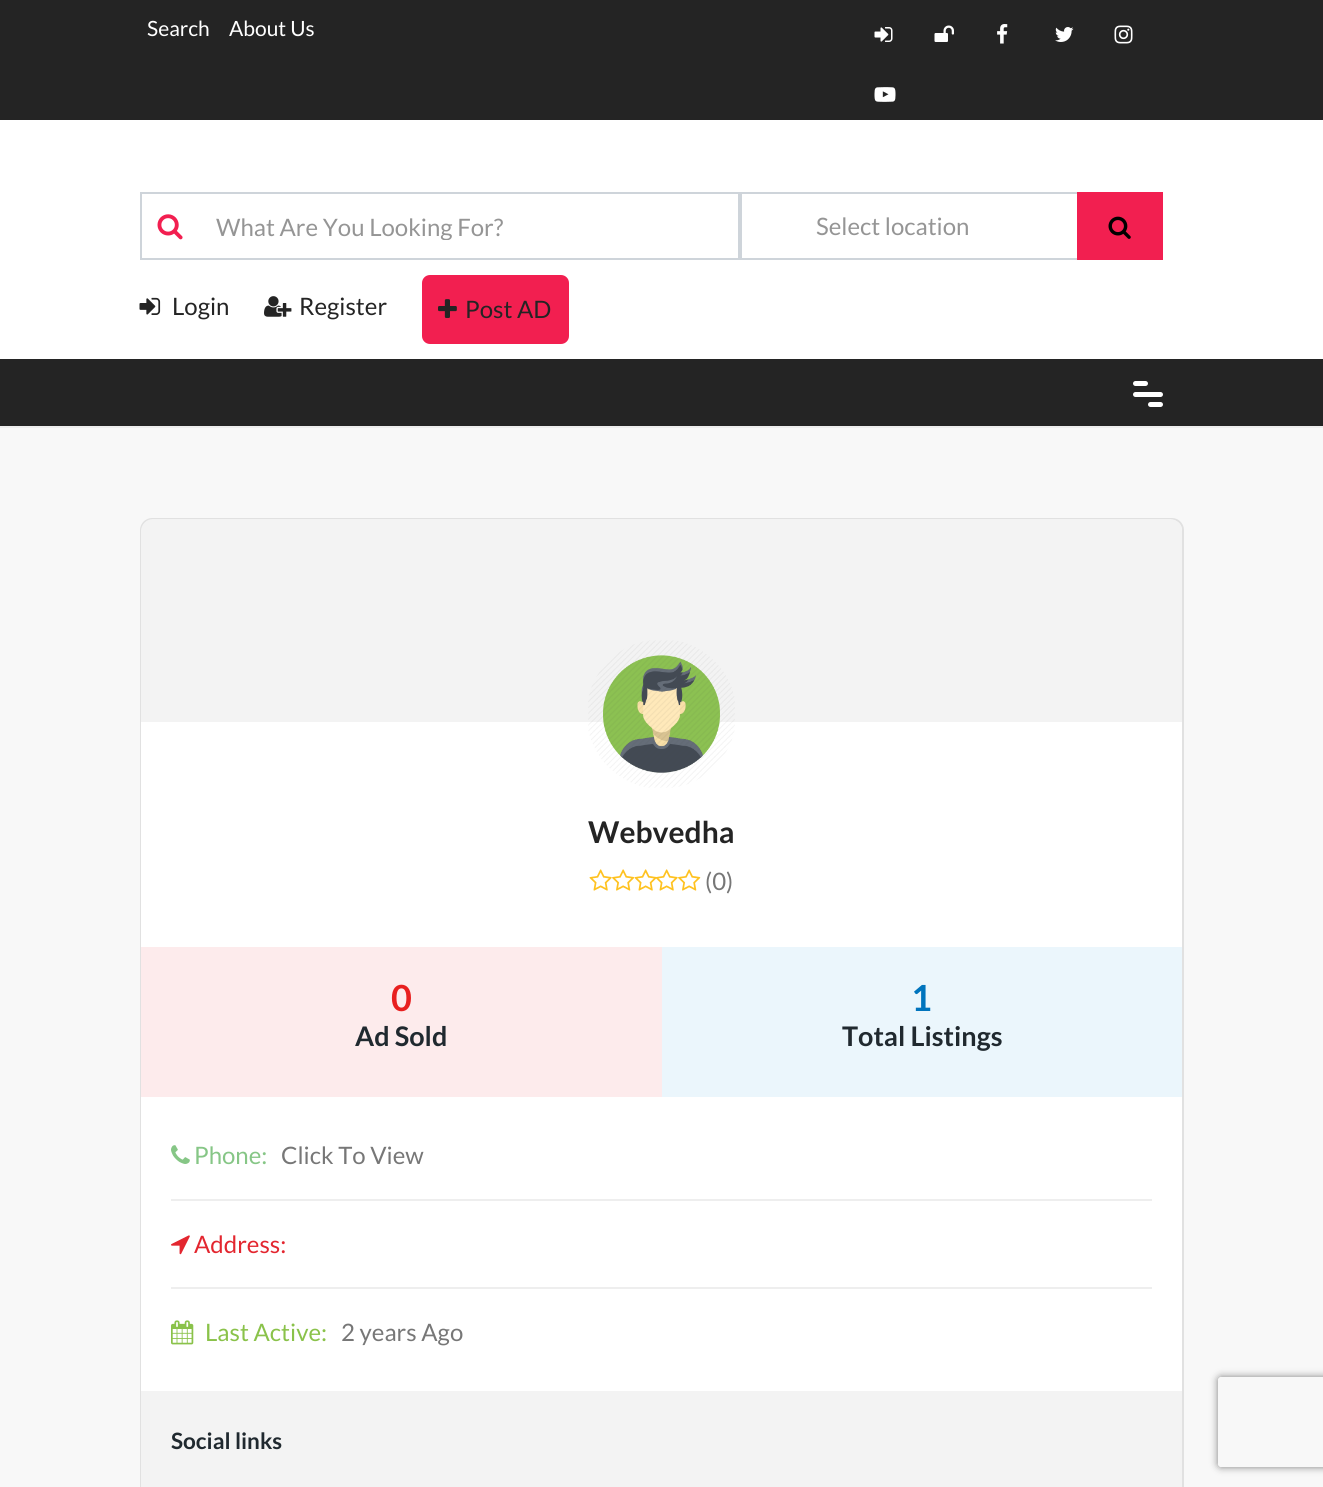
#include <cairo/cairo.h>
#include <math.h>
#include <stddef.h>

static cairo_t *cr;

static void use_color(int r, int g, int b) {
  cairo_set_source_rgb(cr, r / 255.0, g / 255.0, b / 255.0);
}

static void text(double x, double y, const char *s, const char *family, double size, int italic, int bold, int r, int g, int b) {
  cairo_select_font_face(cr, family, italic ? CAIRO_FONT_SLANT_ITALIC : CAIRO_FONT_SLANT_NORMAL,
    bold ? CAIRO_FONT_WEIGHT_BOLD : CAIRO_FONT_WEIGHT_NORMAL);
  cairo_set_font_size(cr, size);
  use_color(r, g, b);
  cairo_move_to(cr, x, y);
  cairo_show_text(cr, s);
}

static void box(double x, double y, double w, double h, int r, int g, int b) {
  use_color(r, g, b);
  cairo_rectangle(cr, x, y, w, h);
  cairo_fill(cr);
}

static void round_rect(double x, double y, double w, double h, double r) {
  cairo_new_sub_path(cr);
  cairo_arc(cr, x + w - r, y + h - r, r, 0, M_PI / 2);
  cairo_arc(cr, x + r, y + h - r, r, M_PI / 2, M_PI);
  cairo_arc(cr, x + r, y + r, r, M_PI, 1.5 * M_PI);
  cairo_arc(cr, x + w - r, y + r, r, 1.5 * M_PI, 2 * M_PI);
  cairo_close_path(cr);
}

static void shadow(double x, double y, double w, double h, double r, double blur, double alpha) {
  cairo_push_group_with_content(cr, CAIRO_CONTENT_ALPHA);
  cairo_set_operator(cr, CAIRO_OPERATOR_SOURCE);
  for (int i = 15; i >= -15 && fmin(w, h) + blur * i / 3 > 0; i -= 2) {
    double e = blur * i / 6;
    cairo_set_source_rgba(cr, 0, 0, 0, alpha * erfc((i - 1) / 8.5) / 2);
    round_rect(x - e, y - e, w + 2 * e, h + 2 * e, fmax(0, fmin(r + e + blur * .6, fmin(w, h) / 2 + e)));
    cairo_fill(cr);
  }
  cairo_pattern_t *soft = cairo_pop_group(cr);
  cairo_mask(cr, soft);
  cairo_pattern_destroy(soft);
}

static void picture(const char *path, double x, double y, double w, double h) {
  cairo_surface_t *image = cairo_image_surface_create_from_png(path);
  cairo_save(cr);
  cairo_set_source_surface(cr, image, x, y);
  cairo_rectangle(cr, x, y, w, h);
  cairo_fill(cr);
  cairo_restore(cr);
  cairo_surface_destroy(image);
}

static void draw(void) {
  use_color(255, 255, 255);
  cairo_paint(cr);
  box(0, 0, 1323, 120, 36, 36, 36);
  picture("img_01.png", 874, 27, 19, 15);
  picture("img_02.png", 934, 25, 20, 17);
  picture("img_03.png", 997, 24, 11, 20);
  picture("img_04.png", 1055, 27, 19, 15);
  picture("img_05.png", 1114, 25, 19, 19);
  picture("img_06.png", 874, 87, 22, 15);
  cairo_rectangle(cr, 141, 193, 598, 66);
  use_color(206, 212, 218);
  cairo_stroke(cr);
  picture("img_07.png", 157, 214, 26, 26);
  cairo_rectangle(cr, 741, 193, 421, 66);
  cairo_stroke(cr);
  box(1077, 192, 86, 68, 242, 31, 80);
  picture("img_08.png", 1108, 216, 23, 23);
  picture("img_09.png", 139, 297, 22, 18);
  picture("img_10.png", 264, 296, 28, 21);
  round_rect(423, 276, 145, 67, 7);
  cairo_fill_preserve(cr);
  cairo_stroke(cr);
  picture("img_11.png", 438, 299, 19, 19);
  box(0, 359, 1323, 67, 36, 36, 36);
  box(0, 426, 1323, 2, 238, 238, 238);
  use_color(255, 255, 255);
  round_rect(1133, 381, 15, 5, 2.5);
  cairo_fill(cr);
  round_rect(1133, 392, 30, 5, 2.5);
  cairo_fill(cr);
  round_rect(1148, 402, 15, 5, 2.5);
  cairo_fill(cr);
  box(0, 428, 1323, 1059, 248, 248, 248);
  cairo_new_path(cr);
  cairo_move_to(cr, 152, 519);
  cairo_line_to(cr, 1172, 519);
  cairo_curve_to(cr, 1178, 519, 1183, 524, 1183, 530);
  cairo_line_to(cr, 1183, 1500);
  cairo_line_to(cr, 141, 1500);
  cairo_line_to(cr, 141, 530);
  cairo_curve_to(cr, 141, 524, 146, 519, 152, 519);
  cairo_close_path(cr);
  use_color(225, 225, 225);
  cairo_stroke(cr);
  use_color(243, 243, 243);
  cairo_new_path(cr);
  cairo_move_to(cr, 153, 519);
  cairo_line_to(cr, 1170, 519);
  cairo_curve_to(cr, 1176.5, 519, 1182, 524.5, 1182, 531);
  cairo_line_to(cr, 1182, 722);
  cairo_line_to(cr, 141, 722);
  cairo_line_to(cr, 141, 531);
  cairo_curve_to(cr, 141, 524.5, 146.5, 519, 153, 519);
  cairo_close_path(cr);
  cairo_fill(cr);
  box(141, 722, 1041, 225, 255, 255, 255);
  picture("img_12.png", 588, 640, 147, 148);
  picture("img_13.png", 589, 869, 23, 22);
  picture("img_14.png", 612, 869, 23, 22);
  picture("img_15.png", 634, 869, 23, 22);
  picture("img_16.png", 656, 869, 22, 22);
  picture("img_14.png", 678, 869, 23, 22);
  box(141, 947, 521, 150, 253, 235, 236);
  box(662, 947, 520, 150, 235, 246, 252);
  box(141, 1097, 1041, 294, 255, 255, 255);
  box(171, 1199, 981, 2, 238, 238, 238);
  picture("img_17.png", 171, 1145, 19, 19);
  box(171, 1287, 981, 2, 238, 238, 238);
  picture("img_18.png", 171, 1235, 19, 20);
  picture("img_19.png", 171, 1320, 23, 25);
  box(141, 1391, 1041, 96, 243, 243, 243);
  cairo_save(cr);
  cairo_set_fill_rule(cr, CAIRO_FILL_RULE_EVEN_ODD);
  cairo_new_path(cr);
  cairo_move_to(cr, 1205, 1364);
  cairo_line_to(cr, 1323, 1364);
  cairo_line_to(cr, 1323, 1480);
  cairo_line_to(cr, 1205, 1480);
  cairo_close_path(cr);
  cairo_move_to(cr, 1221, 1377);
  cairo_line_to(cr, 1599, 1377);
  cairo_curve_to(cr, 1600.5, 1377, 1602, 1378.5, 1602, 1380);
  cairo_line_to(cr, 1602, 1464);
  cairo_curve_to(cr, 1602, 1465.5, 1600.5, 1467, 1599, 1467);
  cairo_line_to(cr, 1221, 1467);
  cairo_curve_to(cr, 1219.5, 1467, 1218, 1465.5, 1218, 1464);
  cairo_line_to(cr, 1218, 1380);
  cairo_curve_to(cr, 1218, 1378.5, 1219.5, 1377, 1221, 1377);
  cairo_close_path(cr);
  cairo_clip(cr);
  use_color(128, 128, 128);
  shadow(1218, 1377, 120, 90, 3, 4, 1);
  cairo_restore(cr);
  text(147, 36, "Search", "Lato", 21, 0, 0, 255, 255, 255);
  text(229, 36, "About Us", "Lato", 21, 0, 0, 255, 255, 255);
  cairo_save(cr);
  cairo_rectangle(cr, 216, 212, 447, 28);
  cairo_clip(cr);
  text(216, 236, "What Are You Looking For?", "Lato", 24, 0, 0, 149, 149, 149);
  cairo_restore(cr);
  text(816, 235, "Select location", "Lato", 24, 0, 0, 149, 149, 149);
  text(172, 315, "Login", "Lato", 24, 0, 0, 36, 36, 36);
  text(299, 315, "Register", "Lato", 24, 0, 0, 36, 36, 36);
  text(465, 318, "Post AD", "Lato", 24, 0, 0, 36, 36, 36);
  text(588, 843, "Webvedha", "Lato", 30, 0, 1, 36, 36, 36);
  text(705, 890, "(0)", "Lato", 24, 0, 0, 119, 119, 119);
  text(391, 1011, "0", "Lato", 36, 0, 1, 232, 31, 31);
  text(355, 1046, "Ad Sold", "Lato", 27, 0, 1, 32, 41, 47);
  text(911, 1011, "1", "Lato", 36, 0, 1, 0, 116, 189);
  text(842, 1046, "Total Listings", "Lato", 27, 0, 1, 32, 41, 47);
  text(194, 1164, "Phone:", "Lato", 24, 0, 0, 134, 198, 134);
  text(281, 1164, "Click To View", "Lato", 24, 0, 0, 119, 119, 119);
  text(194, 1253, "Address:", "Lato", 24, 0, 0, 227, 38, 47);
  text(205, 1341, "Last Active:", "Lato", 24, 0, 0, 138, 194, 74);
  text(341, 1341, "2 years Ago", "Lato", 24, 0, 0, 119, 119, 119);
  text(171, 1449, "Social links", "Lato", 22.5, 0, 1, 32, 41, 47);
}

int main(void) {
  cairo_surface_t *surface = cairo_image_surface_create(CAIRO_FORMAT_RGB24, 1323, 1487);
  cr = cairo_create(surface);
  cairo_font_options_t *options = cairo_font_options_create();
  cairo_font_options_set_hint_metrics(options, CAIRO_HINT_METRICS_OFF);
  cairo_font_options_set_hint_style(options, CAIRO_HINT_STYLE_NONE);
  cairo_set_font_options(cr, options);
  cairo_set_miter_limit(cr, 4);
  draw();
  cairo_surface_write_to_png(surface, "out.png");
  cairo_font_options_destroy(options);
  cairo_destroy(cr);
  cairo_surface_destroy(surface);
  return 0;
}
